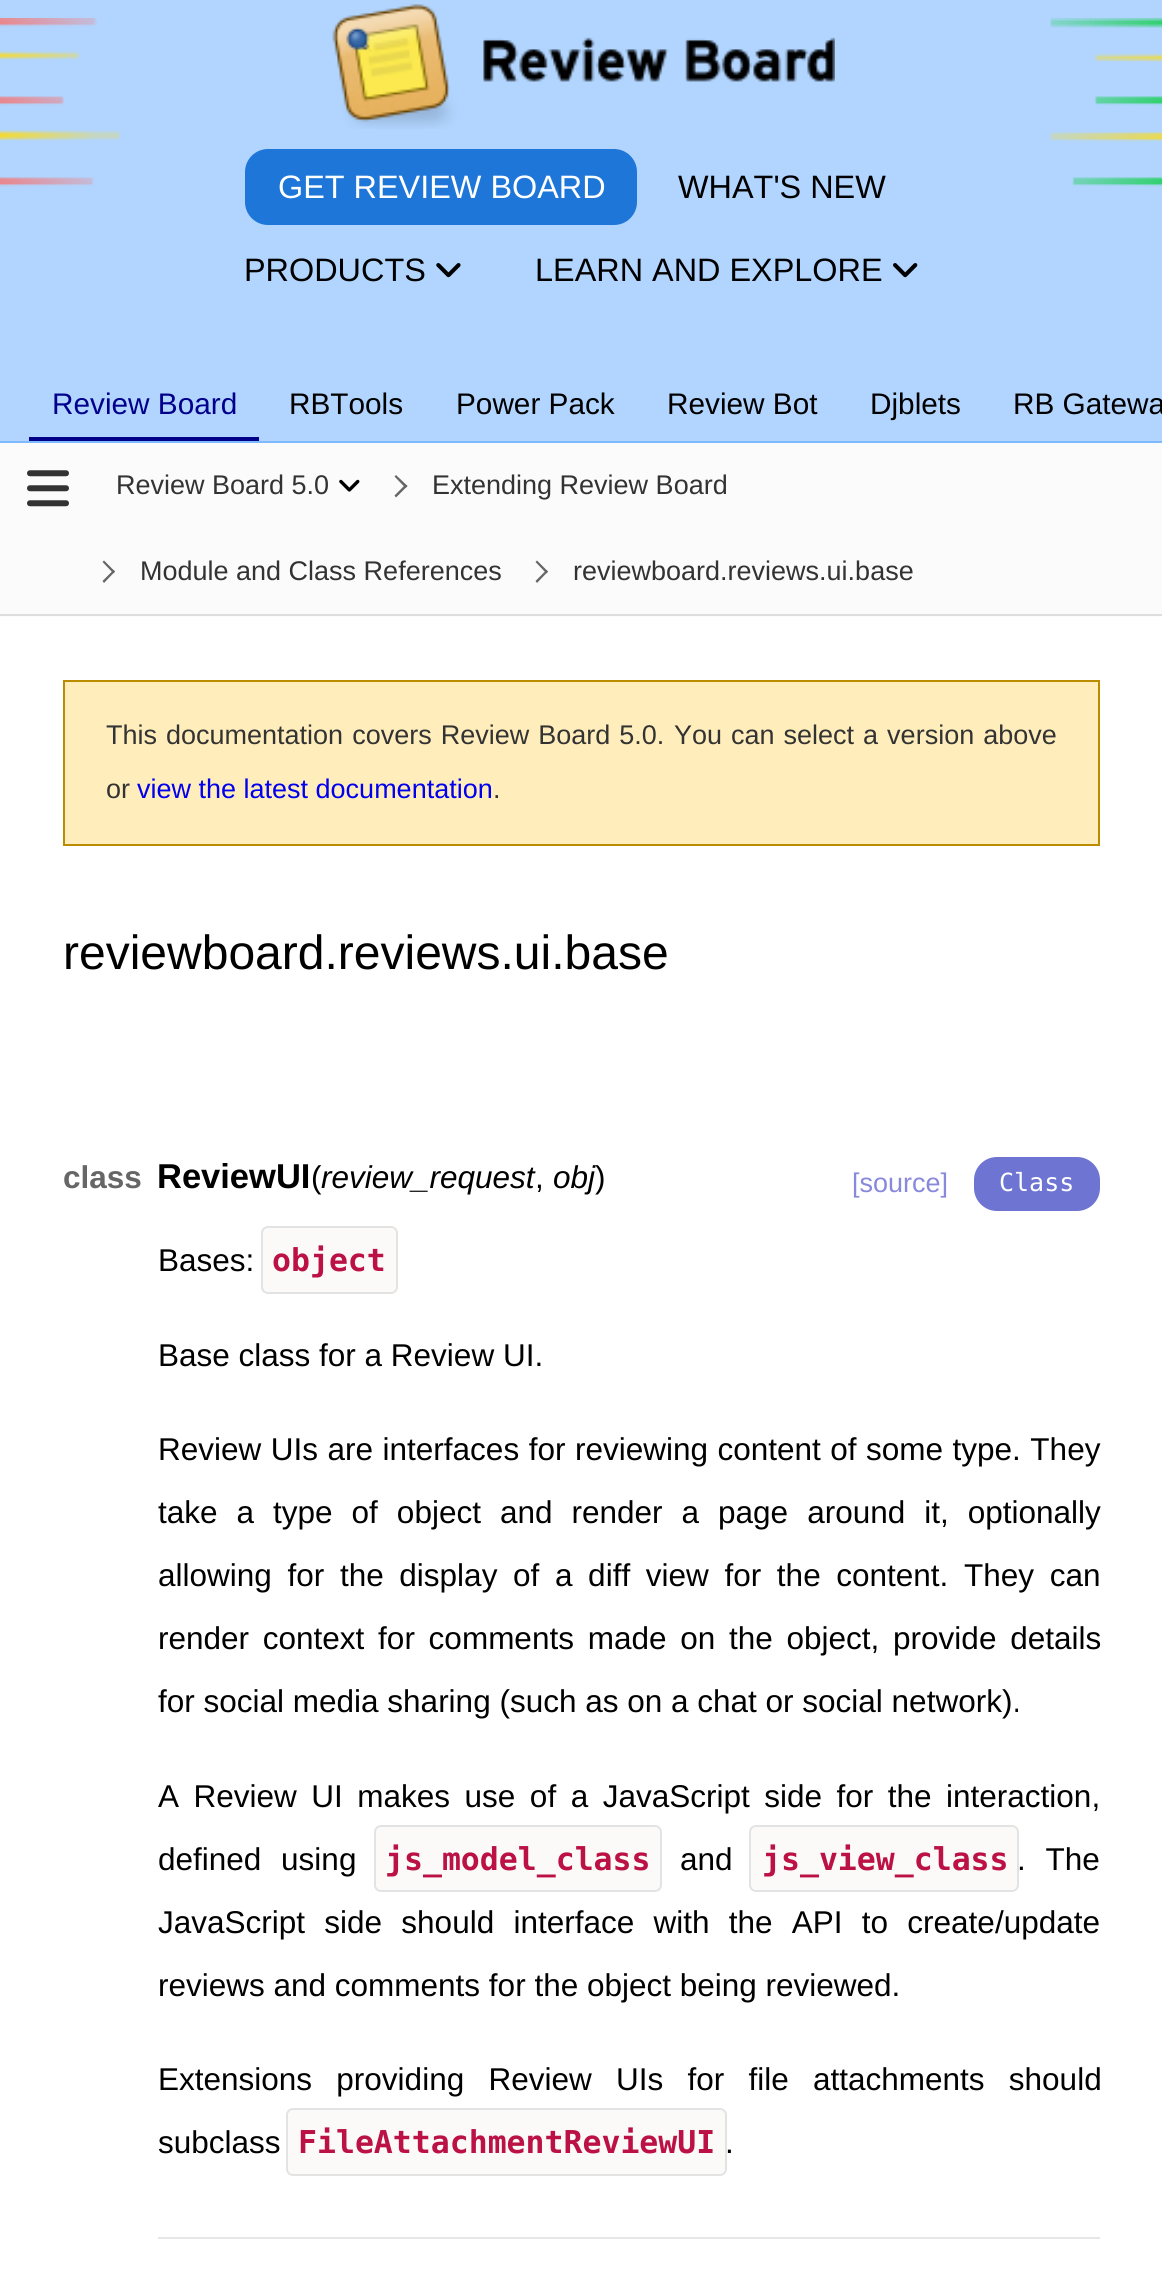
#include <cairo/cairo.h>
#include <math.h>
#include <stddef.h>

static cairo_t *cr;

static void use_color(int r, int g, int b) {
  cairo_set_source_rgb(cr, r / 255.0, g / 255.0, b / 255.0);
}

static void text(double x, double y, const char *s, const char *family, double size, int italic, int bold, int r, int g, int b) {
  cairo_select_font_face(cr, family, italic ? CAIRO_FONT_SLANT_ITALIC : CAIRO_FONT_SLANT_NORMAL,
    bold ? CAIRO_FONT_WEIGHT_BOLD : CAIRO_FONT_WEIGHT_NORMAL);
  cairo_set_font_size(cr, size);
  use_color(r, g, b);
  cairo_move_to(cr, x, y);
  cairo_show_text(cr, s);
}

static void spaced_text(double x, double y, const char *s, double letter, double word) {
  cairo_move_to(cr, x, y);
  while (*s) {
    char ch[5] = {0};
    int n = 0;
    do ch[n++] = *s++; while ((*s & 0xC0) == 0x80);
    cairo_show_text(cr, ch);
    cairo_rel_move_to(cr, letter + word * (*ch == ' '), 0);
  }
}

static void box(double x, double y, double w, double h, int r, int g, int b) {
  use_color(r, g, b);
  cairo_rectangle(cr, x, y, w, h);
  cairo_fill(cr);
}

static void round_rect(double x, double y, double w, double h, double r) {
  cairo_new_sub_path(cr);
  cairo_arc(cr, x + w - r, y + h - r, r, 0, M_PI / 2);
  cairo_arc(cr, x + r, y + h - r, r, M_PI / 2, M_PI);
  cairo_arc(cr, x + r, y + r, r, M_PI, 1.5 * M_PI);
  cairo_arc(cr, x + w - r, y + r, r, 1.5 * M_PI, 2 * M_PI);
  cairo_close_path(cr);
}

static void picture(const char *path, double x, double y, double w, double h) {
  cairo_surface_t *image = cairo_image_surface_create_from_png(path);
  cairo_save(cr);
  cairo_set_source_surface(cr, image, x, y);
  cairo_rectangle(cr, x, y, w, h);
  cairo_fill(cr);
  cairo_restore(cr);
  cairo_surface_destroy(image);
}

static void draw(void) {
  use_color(255, 255, 255);
  cairo_paint(cr);
  box(0, 0, 1162, 441, 177, 213, 255);
  picture("img_01.png", 0, 18, 120, 169);
  picture("img_02.png", 332, 4, 503, 125);
  picture("img_03.png", 1050, 18, 112, 169);
  use_color(30, 118, 217);
  round_rect(245, 149, 392, 76, 23);
  cairo_fill(cr);
  picture("img_04.png", 436, 263, 25, 15);
  picture("img_05.png", 893, 263, 25, 15);
  box(0, 441, 1162, 2, 126, 186, 255);
  box(29, 437, 230, 4, 0, 0, 139);
  box(0, 443, 1162, 174, 251, 251, 251);
  picture("img_06.png", 27, 470, 42, 37);
  box(0, 614, 1162, 2, 221, 221, 221);
  picture("img_07.png", 339, 479, 21, 13);
  use_color(102, 102, 102);
  cairo_new_path(cr);
  cairo_move_to(cr, 396, 475);
  cairo_line_to(cr, 407.5, 486);
  cairo_line_to(cr, 405.5, 488);
  cairo_line_to(cr, 394.5, 476.5);
  cairo_close_path(cr);
  cairo_fill(cr);
  cairo_new_path(cr);
  cairo_move_to(cr, 405.5, 484.5);
  cairo_line_to(cr, 407.5, 486);
  cairo_line_to(cr, 396, 497.5);
  cairo_line_to(cr, 394.5, 495.5);
  cairo_close_path(cr);
  cairo_fill(cr);
  cairo_new_path(cr);
  cairo_move_to(cr, 104, 560.5);
  cairo_line_to(cr, 115, 571.5);
  cairo_line_to(cr, 113.5, 573.5);
  cairo_line_to(cr, 102.5, 562);
  cairo_close_path(cr);
  cairo_fill(cr);
  cairo_new_path(cr);
  cairo_move_to(cr, 113.5, 570);
  cairo_line_to(cr, 115, 571.5);
  cairo_line_to(cr, 104, 583);
  cairo_line_to(cr, 102.5, 581);
  cairo_close_path(cr);
  cairo_fill(cr);
  cairo_new_path(cr);
  cairo_move_to(cr, 537, 560.5);
  cairo_line_to(cr, 548, 571.5);
  cairo_line_to(cr, 546.5, 573.5);
  cairo_line_to(cr, 535.5, 562);
  cairo_close_path(cr);
  cairo_fill(cr);
  cairo_new_path(cr);
  cairo_move_to(cr, 546.5, 570);
  cairo_line_to(cr, 548, 571.5);
  cairo_line_to(cr, 537, 583);
  cairo_line_to(cr, 535.5, 581);
  cairo_close_path(cr);
  cairo_fill(cr);
  use_color(255, 238, 187);
  cairo_rectangle(cr, 64, 681, 1035, 164);
  cairo_fill_preserve(cr);
  use_color(187, 140, 0);
  cairo_stroke(cr);
  use_color(110, 116, 210);
  round_rect(974, 1157, 126, 54, 23);
  cairo_fill(cr);
  use_color(251, 250, 248);
  round_rect(262, 1227, 135, 66, 6);
  cairo_fill_preserve(cr);
  use_color(227, 227, 227);
  cairo_stroke(cr);
  use_color(251, 250, 248);
  round_rect(375, 1826, 286, 65, 6);
  cairo_fill_preserve(cr);
  use_color(227, 227, 227);
  cairo_stroke(cr);
  use_color(251, 250, 248);
  round_rect(750, 1826, 268, 65, 6);
  cairo_fill_preserve(cr);
  use_color(227, 227, 227);
  cairo_stroke(cr);
  use_color(251, 250, 248);
  round_rect(287, 2109, 439, 66, 6);
  cairo_fill_preserve(cr);
  use_color(227, 227, 227);
  cairo_stroke(cr);
  box(158, 2237, 942, 2, 230, 230, 230);
  text(278, 198, "GET REVIEW BOARD", "Liberation Sans", 32.4, 0, 0, 255, 255, 255);
  text(678, 198, "WHAT'S NEW", "Liberation Sans", 32.4, 0, 0, 0, 0, 0);
  text(244, 281, "PRODUCTS", "Liberation Sans", 32.4, 0, 0, 0, 0, 0);
  text(535, 281, "LEARN AND EXPLORE", "Liberation Sans", 32.4, 0, 0, 0, 0, 0);
  text(52, 414, "Review Board", "Liberation Sans", 29.75, 0, 0, 0, 0, 139);
  text(289, 414, "RBTools", "Liberation Sans", 29.75, 0, 0, 0, 0, 0);
  text(456, 414, "Power Pack", "Liberation Sans", 29.75, 0, 0, 0, 0, 0);
  text(667, 414, "Review Bot", "Liberation Sans", 29.75, 0, 0, 0, 0, 0);
  text(870, 414, "Djblets", "Liberation Sans", 29.75, 0, 0, 0, 0, 0);
  text(1013, 414, "RB Gatewa", "Liberation Sans", 29.75, 0, 0, 0, 0, 0);
  text(116, 494, "Review Board 5.0", "Liberation Sans", 27, 0, 0, 51, 51, 51);
  text(432, 494, "Extending Review Board", "Liberation Sans", 27, 0, 0, 51, 51, 51);
  text(140, 580, "Module and Class References", "Liberation Sans", 27, 0, 0, 51, 51, 51);
  text(573, 580, "reviewboard.reviews.ui.base", "Liberation Sans", 27, 0, 0, 51, 51, 51);
  spaced_text(106, 744, "This documentation covers Review Board 5.0.", 0, 1.5);
  spaced_text(674, 744, "You can select a version above", 0, 1.5);
  text(106, 798, "or", "Liberation Sans", 27, 0, 0, 51, 51, 51);
  text(137, 798, "view the latest documentation", "Liberation Sans", 27, 0, 0, 0, 0, 238);
  text(493, 798, ".", "Liberation Sans", 27, 0, 0, 51, 51, 51);
  text(63, 969, "reviewboard.reviews.ui.base", "Liberation Sans", 48, 0, 0, 0, 0, 0);
  text(63, 1188, "class", "Liberation Sans", 31.5, 0, 1, 102, 102, 102);
  text(157, 1188, "ReviewUI", "Liberation Sans", 34.5, 0, 1, 0, 0, 0);
  text(311, 1188, "(", "Liberation Sans", 31.5, 0, 0, 0, 0, 0);
  text(321, 1188, "review_request", "Liberation Sans", 31.5, 1, 0, 0, 0, 0);
  text(535, 1188, ",", "Liberation Sans", 31.5, 0, 0, 0, 0, 0);
  text(553, 1188, "obj", "Liberation Sans", 31.5, 1, 0, 0, 0, 0);
  text(595, 1188, ")", "Liberation Sans", 31.5, 0, 0, 0, 0, 0);
  text(852, 1192, "[source]", "Liberation Sans", 27, 0, 0, 136, 136, 221);
  text(999, 1191, "Class", "DejaVu Sans Mono", 25, 0, 0, 255, 255, 255);
  text(158, 1271, "Bases:", "Liberation Sans", 31.5, 0, 0, 0, 0, 0);
  text(272, 1271, "object", "DejaVu Sans Mono", 31.5, 0, 1, 187, 17, 68);
  text(158, 1366, "Base class for a Review UI.", "Liberation Sans", 31.5, 0, 0, 0, 0, 0);
  spaced_text(158, 1460, "Review UIs are interfaces for reviewing content of some type. They", 0, 0.75);
  spaced_text(158, 1523, "take a type of object and render a page around it, optionally", 0, 10.25);
  spaced_text(158, 1586, "allowing for the display of a diff view for the content. They can", 0, 6.9);
  spaced_text(158, 1649, "render context for comments made on the object, provide details", 0, 5);
  text(158, 1712, "for social media sharing (such as on a chat or social network).", "Liberation Sans", 31.5, 0, 0, 0, 0, 0);
  spaced_text(158, 1807, "A Review UI makes use of a JavaScript side for the interaction,", 0, 5.75);
  spaced_text(158, 1870, "defined using", 0, 11);
  text(385, 1870, "js_model_class", "DejaVu Sans Mono", 31.5, 0, 1, 187, 17, 68);
  text(680, 1870, "and", "Liberation Sans", 31.5, 0, 0, 0, 0, 0);
  text(762, 1870, "js_view_class", "DejaVu Sans Mono", 31.5, 0, 1, 187, 17, 68);
  cairo_select_font_face(cr, "Liberation Sans", CAIRO_FONT_SLANT_NORMAL, CAIRO_FONT_WEIGHT_NORMAL);
  use_color(0, 0, 0);
  spaced_text(1017, 1870, ". The", 0, 11);
  spaced_text(158, 1933, "JavaScript side should interface with the API to create/update", 0, 10.5);
  text(158, 1996, "reviews and comments for the object being reviewed.", "Liberation Sans", 31.5, 0, 0, 0, 0, 0);
  spaced_text(158, 2090, "Extensions providing Review UIs for file attachments should", 0, 15.5);
  text(158, 2153, "subclass", "Liberation Sans", 31.5, 0, 0, 0, 0, 0);
  text(298, 2153, "FileAttachmentReviewUI", "DejaVu Sans Mono", 31.5, 0, 1, 187, 17, 68);
  text(725, 2153, ".", "Liberation Sans", 31.5, 0, 0, 0, 0, 0);
}

int main(void) {
  cairo_surface_t *surface = cairo_image_surface_create(CAIRO_FORMAT_RGB24, 1162, 2289);
  cr = cairo_create(surface);
  cairo_font_options_t *options = cairo_font_options_create();
  cairo_font_options_set_hint_metrics(options, CAIRO_HINT_METRICS_OFF);
  cairo_font_options_set_hint_style(options, CAIRO_HINT_STYLE_NONE);
  cairo_set_font_options(cr, options);
  cairo_set_miter_limit(cr, 4);
  draw();
  cairo_surface_write_to_png(surface, "out.png");
  cairo_font_options_destroy(options);
  cairo_destroy(cr);
  cairo_surface_destroy(surface);
  return 0;
}
